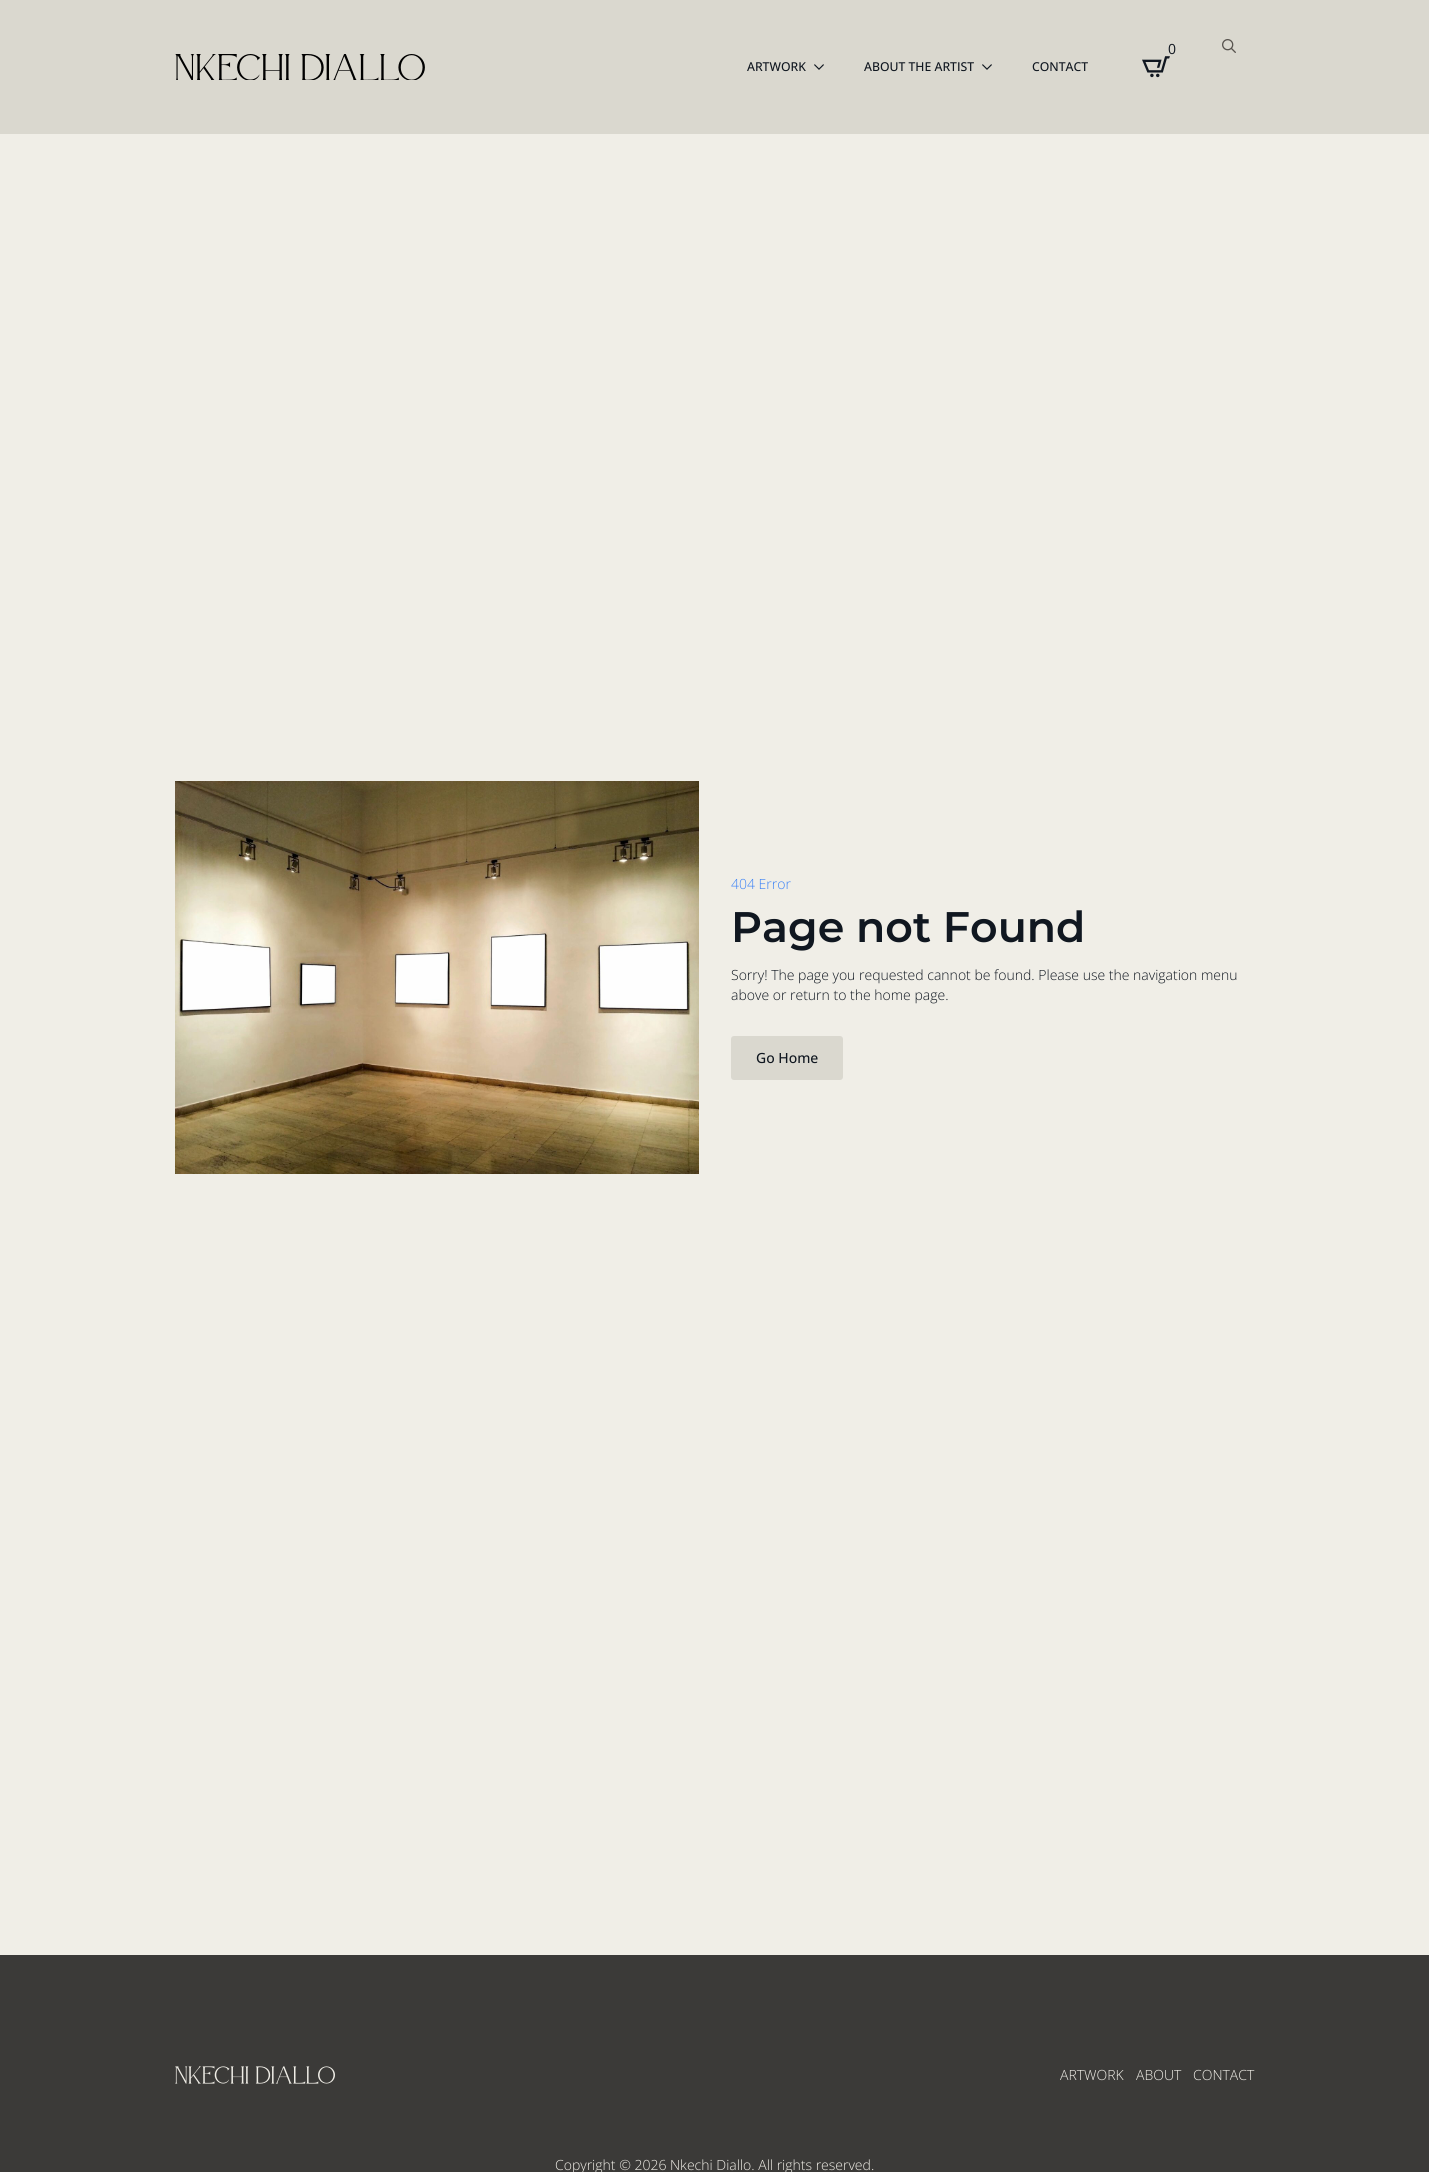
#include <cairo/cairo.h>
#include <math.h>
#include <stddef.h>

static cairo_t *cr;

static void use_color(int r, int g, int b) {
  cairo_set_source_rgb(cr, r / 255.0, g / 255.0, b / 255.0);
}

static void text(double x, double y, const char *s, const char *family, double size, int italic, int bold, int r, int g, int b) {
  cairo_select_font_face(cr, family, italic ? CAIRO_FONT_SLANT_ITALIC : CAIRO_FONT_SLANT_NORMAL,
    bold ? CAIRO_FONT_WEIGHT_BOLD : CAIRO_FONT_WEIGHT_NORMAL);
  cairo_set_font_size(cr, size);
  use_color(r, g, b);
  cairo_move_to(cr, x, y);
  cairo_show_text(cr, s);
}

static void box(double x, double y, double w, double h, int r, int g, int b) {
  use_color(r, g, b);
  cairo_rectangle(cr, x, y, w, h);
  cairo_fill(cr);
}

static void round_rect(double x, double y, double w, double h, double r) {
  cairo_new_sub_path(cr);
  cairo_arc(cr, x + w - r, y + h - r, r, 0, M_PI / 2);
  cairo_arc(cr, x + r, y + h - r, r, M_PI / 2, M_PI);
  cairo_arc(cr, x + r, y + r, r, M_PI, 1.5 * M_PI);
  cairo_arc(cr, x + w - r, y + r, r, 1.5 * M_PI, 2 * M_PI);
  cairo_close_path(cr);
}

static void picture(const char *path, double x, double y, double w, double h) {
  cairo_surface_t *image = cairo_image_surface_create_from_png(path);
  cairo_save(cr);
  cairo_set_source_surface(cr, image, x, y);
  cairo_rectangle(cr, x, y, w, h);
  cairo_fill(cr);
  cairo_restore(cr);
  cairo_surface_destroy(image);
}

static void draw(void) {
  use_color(240, 238, 231);
  cairo_paint(cr);
  box(0, 0, 1429, 134, 218, 216, 207);
  picture("img_01.png", 175, 54, 250, 26);
  picture("img_02.png", 1142, 56, 28, 22);
  picture("img_03.png", 814, 64, 10, 6);
  picture("img_03.png", 982, 64, 10, 6);
  picture("img_04.png", 1222, 39, 14, 14);
  picture("img_05.png", 175, 781, 524, 393);
  round_rect(731, 1036, 112, 44, 3);
  cairo_fill(cr);
  box(0, 1955, 1429, 217, 59, 58, 56);
  picture("img_06.png", 175, 2066, 160, 18);
  text(1168, 54, "0", "Open Sans", 14, 0, 0, 16, 23, 32);
  text(747, 71, "ARTWORK", "Open Sans Medium", 12.25, 0, 0, 16, 23, 32);
  text(864, 71, "ABOUT THE ARTIST", "Open Sans Medium", 12.25, 0, 0, 16, 23, 32);
  text(1032, 71, "CONTACT", "Open Sans Medium", 12.25, 0, 0, 16, 23, 32);
  text(731, 889, "404 Error", "Open Sans Light", 14, 0, 0, 59, 130, 246);
  text(731, 942, "Page not Found", "Montserrat SemiBold", 42.75, 0, 0, 16, 23, 32);
  text(731, 980, "Sorry! The page you requested cannot be found. Please use the navigation menu", "Open Sans Light", 14, 0, 0, 16, 23, 32);
  text(731, 1000, "above or return to the home page.", "Open Sans Light", 14, 0, 0, 16, 23, 32);
  text(756, 1063, "Go Home", "Open Sans Medium", 14, 0, 0, 16, 23, 32);
  text(1060, 2080, "ARTWORK", "Open Sans Light", 14, 0, 0, 240, 238, 231);
  text(1136, 2080, "ABOUT", "Open Sans Light", 14, 0, 0, 240, 238, 231);
  text(1193, 2080, "CONTACT", "Open Sans Light", 14, 0, 0, 240, 238, 231);
  text(555, 2170, "Copyright © 2026 Nkechi Diallo. All rights reserved.", "Open Sans Light", 14, 0, 0, 240, 238, 231);
}

int main(void) {
  cairo_surface_t *surface = cairo_image_surface_create(CAIRO_FORMAT_RGB24, 1429, 2172);
  cr = cairo_create(surface);
  cairo_font_options_t *options = cairo_font_options_create();
  cairo_font_options_set_hint_metrics(options, CAIRO_HINT_METRICS_OFF);
  cairo_font_options_set_hint_style(options, CAIRO_HINT_STYLE_NONE);
  cairo_set_font_options(cr, options);
  cairo_set_miter_limit(cr, 4);
  draw();
  cairo_surface_write_to_png(surface, "out.png");
  cairo_font_options_destroy(options);
  cairo_destroy(cr);
  cairo_surface_destroy(surface);
  return 0;
}
